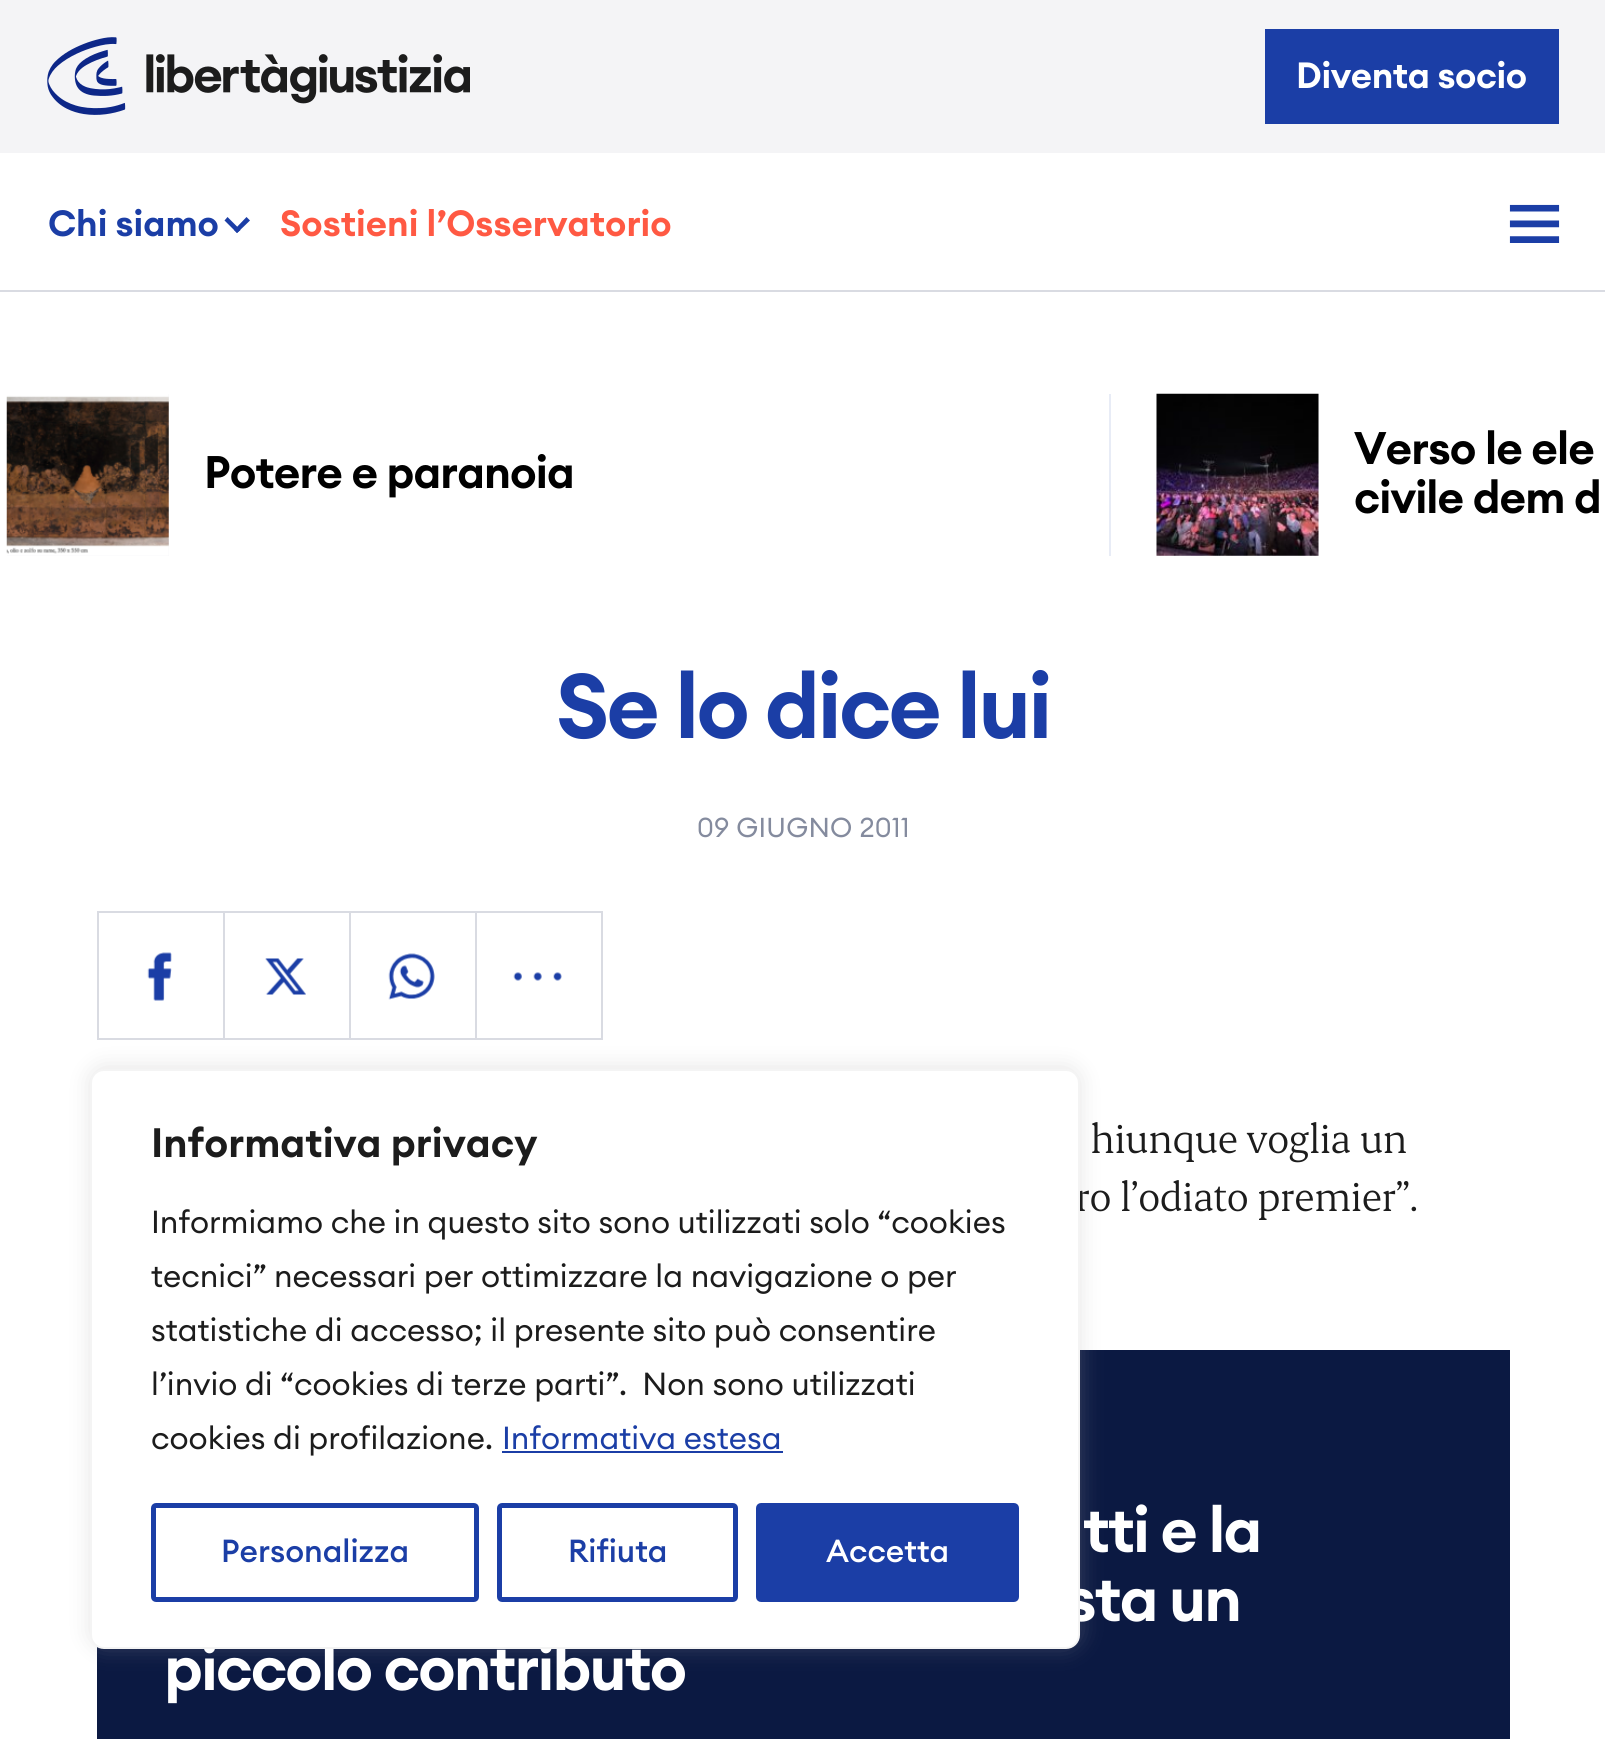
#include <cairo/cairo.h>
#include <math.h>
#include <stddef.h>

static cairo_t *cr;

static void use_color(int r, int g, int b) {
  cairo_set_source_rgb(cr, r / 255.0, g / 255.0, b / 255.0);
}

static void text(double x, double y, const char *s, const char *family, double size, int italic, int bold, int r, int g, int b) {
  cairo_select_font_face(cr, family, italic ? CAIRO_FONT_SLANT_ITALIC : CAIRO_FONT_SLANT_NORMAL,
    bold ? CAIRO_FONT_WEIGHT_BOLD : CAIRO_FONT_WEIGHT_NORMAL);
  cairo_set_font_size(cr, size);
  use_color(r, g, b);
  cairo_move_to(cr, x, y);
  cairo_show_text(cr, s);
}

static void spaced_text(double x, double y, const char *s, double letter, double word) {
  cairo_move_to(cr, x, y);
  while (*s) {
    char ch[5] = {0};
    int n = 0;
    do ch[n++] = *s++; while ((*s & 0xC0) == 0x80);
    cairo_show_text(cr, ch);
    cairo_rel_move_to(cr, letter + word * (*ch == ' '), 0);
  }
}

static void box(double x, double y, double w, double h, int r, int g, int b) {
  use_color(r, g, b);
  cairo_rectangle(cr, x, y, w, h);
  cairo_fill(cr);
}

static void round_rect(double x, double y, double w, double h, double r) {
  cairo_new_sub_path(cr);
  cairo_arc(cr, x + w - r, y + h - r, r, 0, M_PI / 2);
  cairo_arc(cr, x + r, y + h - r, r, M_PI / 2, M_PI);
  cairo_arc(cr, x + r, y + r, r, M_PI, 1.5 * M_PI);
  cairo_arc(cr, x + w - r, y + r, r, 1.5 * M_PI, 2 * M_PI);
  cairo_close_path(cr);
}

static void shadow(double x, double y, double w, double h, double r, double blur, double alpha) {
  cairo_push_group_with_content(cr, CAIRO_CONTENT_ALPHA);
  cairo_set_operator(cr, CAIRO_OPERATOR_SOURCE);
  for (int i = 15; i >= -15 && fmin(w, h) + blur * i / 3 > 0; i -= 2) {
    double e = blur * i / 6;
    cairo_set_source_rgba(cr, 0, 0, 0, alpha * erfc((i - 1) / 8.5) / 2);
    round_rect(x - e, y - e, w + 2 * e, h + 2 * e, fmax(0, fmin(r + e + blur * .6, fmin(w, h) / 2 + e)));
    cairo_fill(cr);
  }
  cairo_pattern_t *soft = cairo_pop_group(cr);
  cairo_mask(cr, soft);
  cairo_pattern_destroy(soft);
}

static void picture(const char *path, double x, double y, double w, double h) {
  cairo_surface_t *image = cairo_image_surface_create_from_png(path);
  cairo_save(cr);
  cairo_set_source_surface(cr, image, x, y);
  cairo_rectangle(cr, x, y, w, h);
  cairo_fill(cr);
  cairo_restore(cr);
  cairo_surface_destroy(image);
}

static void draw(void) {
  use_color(255, 255, 255);
  cairo_paint(cr);
  box(0, 0, 1605, 153, 244, 244, 246);
  picture("img_01.png", 47, 37, 423, 78);
  box(1265, 29, 294, 95, 27, 62, 166);
  box(0, 290, 1605, 2, 217, 219, 226);
  use_color(27, 62, 166);
  cairo_new_path(cr);
  cairo_move_to(cr, 234, 230);
  cairo_line_to(cr, 246.5, 217);
  cairo_line_to(cr, 250, 220.5);
  cairo_line_to(cr, 237, 233);
  cairo_close_path(cr);
  cairo_fill(cr);
  cairo_new_path(cr);
  cairo_move_to(cr, 224.5, 220.5);
  cairo_line_to(cr, 227.5, 217);
  cairo_line_to(cr, 240.5, 230);
  cairo_line_to(cr, 237, 233);
  cairo_close_path(cr);
  cairo_fill(cr);
  picture("img_02.png", 1509, 204, 51, 39);
  box(1109, 394, 2, 162, 232, 236, 246);
  box(7, 394, 162, 162, 244, 244, 246);
  picture("img_03.png", 6, 394, 163, 162);
  box(1157, 394, 162, 162, 244, 244, 246);
  picture("img_04.png", 1156, 393, 163, 163);
  cairo_rectangle(cr, 98, 912, 126, 127);
  use_color(217, 219, 226);
  cairo_stroke(cr);
  picture("img_05.png", 147, 952, 25, 49);
  cairo_rectangle(cr, 224, 912, 126, 127);
  cairo_stroke(cr);
  picture("img_06.png", 265, 958, 41, 37);
  cairo_rectangle(cr, 350, 912, 126, 127);
  cairo_stroke(cr);
  picture("img_07.png", 388, 953, 47, 47);
  cairo_rectangle(cr, 476, 912, 126, 127);
  cairo_stroke(cr);
  picture("img_08.png", 513, 972, 49, 9);
  box(97, 1350, 1413, 389, 11, 25, 66);
  use_color(172, 171, 171);
  shadow(90, 1067, 990, 580, 14, 11, 0.3);
  cairo_select_font_face(cr, "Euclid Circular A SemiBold", CAIRO_FONT_SLANT_NORMAL, CAIRO_FONT_WEIGHT_NORMAL);
  cairo_set_font_size(cr, 36);
  use_color(255, 255, 255);
  spaced_text(1296, 88, "Diventa socio", -0.4, 0);
  text(48, 236, "Chi siamo", "Euclid Circular A SemiBold", 36, 0, 0, 27, 62, 166);
  text(280, 236, "Sostieni l’Osservatorio", "Euclid Circular A SemiBold", 36, 0, 0, 255, 89, 67);
  cairo_set_font_size(cr, 45);
  use_color(0, 0, 0);
  spaced_text(204, 488, "Potere e paranoia", -0.9, 0);
  spaced_text(1354, 464, "Verso le ele", -0.9, 0);
  spaced_text(1354, 513, "civile dem d", -0.9, 0);
  cairo_set_font_size(cr, 90);
  use_color(27, 62, 166);
  spaced_text(556, 738, "Se lo dice lui", -2.75, 0);
  cairo_select_font_face(cr, "Euclid Circular A", CAIRO_FONT_SLANT_NORMAL, CAIRO_FONT_WEIGHT_NORMAL);
  cairo_set_font_size(cr, 27);
  use_color(132, 139, 158);
  spaced_text(697, 837, "09 GIUGNO 2011", 0.25, 0);
  cairo_select_font_face(cr, "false", CAIRO_FONT_SLANT_NORMAL, CAIRO_FONT_WEIGHT_NORMAL);
  cairo_set_font_size(cr, 45);
  use_color(28, 28, 28);
  spaced_text(1090, 1153, "hiunque voglia un", -0.9, 0);
  spaced_text(1075, 1211, "ro l’odiato premier”.", -0.9, 0);
  cairo_select_font_face(cr, "Euclid Circular A SemiBold", CAIRO_FONT_SLANT_NORMAL, CAIRO_FONT_WEIGHT_NORMAL);
  cairo_set_font_size(cr, 63);
  use_color(255, 255, 255);
  spaced_text(1083, 1552, "tti e la", -1.9, 0);
  spaced_text(1065, 1621, "sta un", -1.9, 0);
  spaced_text(164, 1690, "piccolo contributo", -1.9, 0);
  round_rect(91, 1070, 988, 578, 13);
  cairo_fill_preserve(cr);
  use_color(244, 244, 244);
  cairo_stroke(cr);
  text(151, 1157, "Informativa privacy", "Euclid Circular A SemiBold", 40.5, 0, 0, 28, 28, 28);
  text(151, 1233, "Informiamo che in questo sito sono utilizzati solo “cookies", "Euclid Circular A", 31.5, 0, 0, 28, 28, 28);
  text(151, 1287, "tecnici” necessari per ottimizzare la navigazione o per", "Euclid Circular A", 31.5, 0, 0, 28, 28, 28);
  text(151, 1341, "statistiche di accesso; il presente sito può consentire", "Euclid Circular A", 31.5, 0, 0, 28, 28, 28);
  text(151, 1395, "l’invio di “cookies di terze parti”.  Non sono utilizzati", "Euclid Circular A", 31.5, 0, 0, 28, 28, 28);
  text(151, 1449, "cookies di profilazione.", "Euclid Circular A", 31.5, 0, 0, 28, 28, 28);
  text(502, 1449, "Informativa estesa", "Euclid Circular A", 31.5, 0, 0, 27, 62, 166);
  box(502, 1451, 281, 2, 27, 62, 166);
  round_rect(153.5, 1505.5, 323, 94, 2.5);
  cairo_set_line_width(cr, 5);
  cairo_stroke(cr);
  text(221, 1562, "Personalizza", "Euclid Circular A Medium", 31.5, 0, 0, 27, 62, 166);
  round_rect(499.5, 1505.5, 236, 94, 2.5);
  cairo_stroke(cr);
  text(568, 1562, "Rifiuta", "Euclid Circular A Medium", 31.5, 0, 0, 27, 62, 166);
  round_rect(758.5, 1505.5, 258, 94, 2.5);
  cairo_fill_preserve(cr);
  cairo_stroke(cr);
  text(826, 1562, "Accetta", "Euclid Circular A Medium", 31.5, 0, 0, 255, 255, 255);
}

int main(void) {
  cairo_surface_t *surface = cairo_image_surface_create(CAIRO_FORMAT_RGB24, 1605, 1739);
  cr = cairo_create(surface);
  cairo_font_options_t *options = cairo_font_options_create();
  cairo_font_options_set_hint_metrics(options, CAIRO_HINT_METRICS_OFF);
  cairo_font_options_set_hint_style(options, CAIRO_HINT_STYLE_NONE);
  cairo_set_font_options(cr, options);
  cairo_set_miter_limit(cr, 4);
  draw();
  cairo_surface_write_to_png(surface, "out.png");
  cairo_font_options_destroy(options);
  cairo_destroy(cr);
  cairo_surface_destroy(surface);
  return 0;
}
